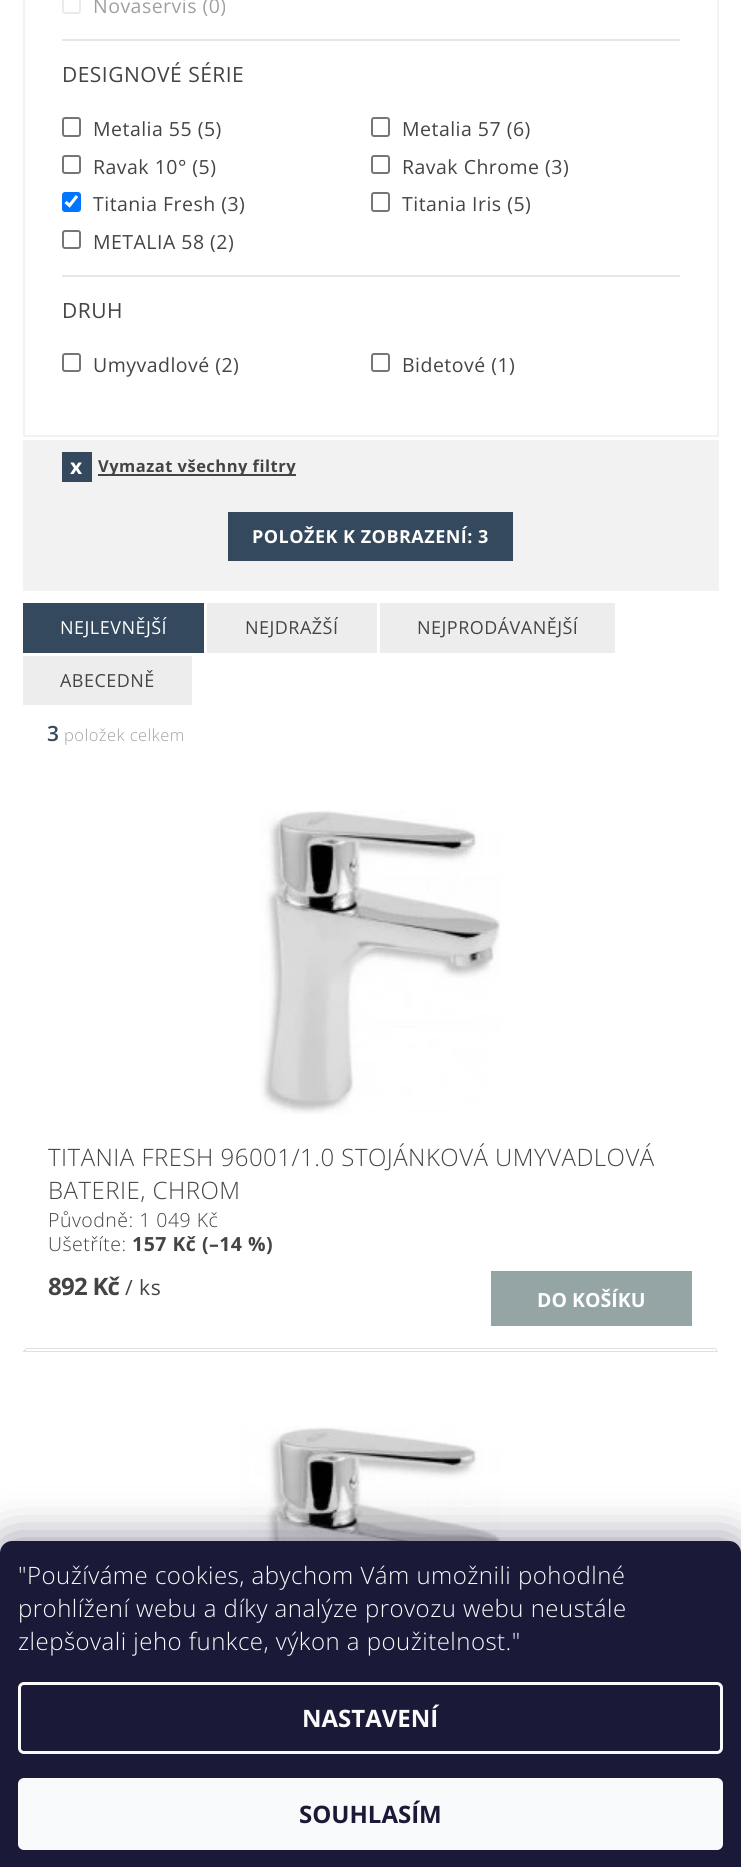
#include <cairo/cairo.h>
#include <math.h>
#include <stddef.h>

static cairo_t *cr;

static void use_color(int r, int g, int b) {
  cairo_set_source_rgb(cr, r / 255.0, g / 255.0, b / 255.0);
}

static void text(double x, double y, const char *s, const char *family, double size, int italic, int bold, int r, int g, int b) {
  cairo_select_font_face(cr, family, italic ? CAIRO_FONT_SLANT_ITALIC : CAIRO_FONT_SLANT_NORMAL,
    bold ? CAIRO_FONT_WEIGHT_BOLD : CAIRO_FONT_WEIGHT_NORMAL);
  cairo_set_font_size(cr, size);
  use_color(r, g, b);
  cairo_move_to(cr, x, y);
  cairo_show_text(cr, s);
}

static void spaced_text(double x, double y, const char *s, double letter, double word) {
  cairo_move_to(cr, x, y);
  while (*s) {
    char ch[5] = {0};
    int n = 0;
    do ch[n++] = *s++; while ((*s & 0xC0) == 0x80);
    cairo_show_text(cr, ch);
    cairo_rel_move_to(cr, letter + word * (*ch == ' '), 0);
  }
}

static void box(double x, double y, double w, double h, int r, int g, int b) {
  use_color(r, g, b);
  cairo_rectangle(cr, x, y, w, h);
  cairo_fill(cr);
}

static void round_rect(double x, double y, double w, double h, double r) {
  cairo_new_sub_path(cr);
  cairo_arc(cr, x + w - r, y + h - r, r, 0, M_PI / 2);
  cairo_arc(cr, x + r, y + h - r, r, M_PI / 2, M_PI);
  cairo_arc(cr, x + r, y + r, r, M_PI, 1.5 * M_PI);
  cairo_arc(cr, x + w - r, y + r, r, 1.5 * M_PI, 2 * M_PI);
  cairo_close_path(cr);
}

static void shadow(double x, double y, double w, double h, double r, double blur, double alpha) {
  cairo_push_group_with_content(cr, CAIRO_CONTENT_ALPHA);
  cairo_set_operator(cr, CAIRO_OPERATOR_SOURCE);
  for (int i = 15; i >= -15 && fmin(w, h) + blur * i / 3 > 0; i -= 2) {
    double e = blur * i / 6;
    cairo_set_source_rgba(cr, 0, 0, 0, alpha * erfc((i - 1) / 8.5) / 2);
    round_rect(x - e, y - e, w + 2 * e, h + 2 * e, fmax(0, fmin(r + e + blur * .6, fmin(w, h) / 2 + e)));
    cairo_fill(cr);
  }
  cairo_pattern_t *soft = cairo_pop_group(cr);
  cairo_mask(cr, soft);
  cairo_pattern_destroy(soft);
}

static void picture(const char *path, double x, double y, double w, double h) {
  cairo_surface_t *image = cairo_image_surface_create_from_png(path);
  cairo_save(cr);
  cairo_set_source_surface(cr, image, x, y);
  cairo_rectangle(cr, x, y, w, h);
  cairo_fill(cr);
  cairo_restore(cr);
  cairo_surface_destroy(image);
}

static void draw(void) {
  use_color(255, 255, 255);
  cairo_paint(cr);
  cairo_rectangle(cr, 24, -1, 694, 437);
  use_color(242, 242, 242);
  cairo_stroke(cr);
  box(62, 39, 618, 2, 231, 231, 231);
  round_rect(63, -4, 17, 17, 2);
  use_color(235, 235, 235);
  cairo_stroke(cr);
  box(62, 275, 618, 2, 231, 231, 231);
  round_rect(63, 118, 17, 18, 2);
  use_color(118, 118, 118);
  cairo_stroke(cr);
  round_rect(372, 118, 17, 18, 2);
  cairo_stroke(cr);
  round_rect(63, 156, 17, 17, 2);
  cairo_stroke(cr);
  round_rect(372, 156, 17, 17, 2);
  cairo_stroke(cr);
  use_color(0, 117, 255);
  round_rect(62, 192, 19, 20, 3);
  cairo_fill(cr);
  cairo_new_path(cr);
  cairo_move_to(cr, 65.5, 202);
  cairo_line_to(cr, 69.5, 205.5);
  cairo_line_to(cr, 77, 196);
  use_color(255, 255, 255);
  cairo_set_line_width(cr, 3.1);
  cairo_stroke(cr);
  round_rect(372, 193, 17, 18, 2);
  use_color(118, 118, 118);
  cairo_set_line_width(cr, 2);
  cairo_stroke(cr);
  round_rect(63, 231, 17, 17, 2);
  cairo_stroke(cr);
  round_rect(63, 354, 17, 17, 2);
  cairo_stroke(cr);
  round_rect(372, 354, 17, 17, 2);
  cairo_stroke(cr);
  box(23, 440, 696, 151, 242, 242, 242);
  box(62, 452, 30, 30, 52, 73, 94);
  box(98, 474, 198, 2, 68, 68, 68);
  box(228, 512, 285, 49, 52, 73, 94);
  box(23, 603, 181, 50, 52, 73, 94);
  box(207, 603, 170, 50, 237, 237, 237);
  box(380, 603, 235, 50, 237, 237, 237);
  box(23, 656, 169, 49, 237, 237, 237);
  use_color(224, 224, 224);
  cairo_new_path(cr);
  cairo_move_to(cr, 718, 1352);
  cairo_line_to(cr, 22, 1352);
  cairo_line_to(cr, 26, 1348);
  cairo_line_to(cr, 716, 1348);
  cairo_close_path(cr);
  cairo_fill(cr);
  use_color(255, 255, 255);
  cairo_new_path(cr);
  cairo_move_to(cr, 22, 1352);
  cairo_line_to(cr, 22, 758);
  cairo_line_to(cr, 26, 760);
  cairo_line_to(cr, 26, 1348);
  cairo_close_path(cr);
  cairo_fill(cr);
  picture("img_01.png", 260, 810, 241, 304);
  cairo_rectangle(cr, 492, 1272, 199, 53);
  use_color(149, 165, 166);
  cairo_stroke(cr);
  box(493, 1273, 197, 51, 149, 165, 166);
  box(26, 1349, 690, 2, 255, 255, 255);
  picture("img_02.png", 241, 1426, 260, 115);
  use_color(27, 25, 57);
  shadow(0, 1541, 741, 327, 12, 22.5, 0.5);
  use_color(26, 25, 55);
  cairo_new_path(cr);
  cairo_move_to(cr, 12, 1541);
  cairo_line_to(cr, 729, 1541);
  cairo_curve_to(cr, 735.5, 1541, 741, 1546.5, 741, 1553);
  cairo_line_to(cr, 741, 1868);
  cairo_line_to(cr, 0, 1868);
  cairo_line_to(cr, 0, 1553);
  cairo_curve_to(cr, 0, 1546.5, 5.5, 1541, 12, 1541);
  cairo_close_path(cr);
  cairo_fill(cr);
  round_rect(19.5, 1683.5, 702, 69, 4.5);
  use_color(248, 250, 251);
  cairo_set_line_width(cr, 3);
  cairo_stroke(cr);
  round_rect(18, 1778, 705, 72, 6);
  cairo_fill(cr);
  cairo_select_font_face(cr, "Open Sans", CAIRO_FONT_SLANT_NORMAL, CAIRO_FONT_WEIGHT_NORMAL);
  cairo_set_font_size(cr, 19.5);
  use_color(160, 160, 160);
  spaced_text(93, 13, "Novaservis (0)", 0.48, 0);
  cairo_set_font_size(cr, 21);
  use_color(68, 68, 68);
  spaced_text(62, 82, "DESIGNOVÉ SÉRIE", 0.48, 0);
  cairo_set_font_size(cr, 19.5);
  spaced_text(93, 136, "Metalia 55 (5)", 0.48, 0);
  spaced_text(402, 136, "Metalia 57 (6)", 0.48, 0);
  spaced_text(93, 174, "Ravak 10° (5)", 0.48, 0);
  spaced_text(402, 174, "Ravak Chrome (3)", 0.48, 0);
  spaced_text(93, 211, "Titania Fresh (3)", 0.48, 0);
  spaced_text(402, 211, "Titania Iris (5)", 0.48, 0);
  spaced_text(93, 249, "METALIA 58 (2)", 0.48, 0);
  cairo_set_font_size(cr, 21);
  spaced_text(62, 318, "DRUH", 0.48, 0);
  cairo_set_font_size(cr, 19.5);
  spaced_text(93, 372, "Umyvadlové (2)", 0.48, 0);
  spaced_text(402, 372, "Bidetové (1)", 0.48, 0);
  cairo_select_font_face(cr, "Open Sans", CAIRO_FONT_SLANT_NORMAL, CAIRO_FONT_WEIGHT_BOLD);
  cairo_set_font_size(cr, 21);
  use_color(255, 255, 255);
  spaced_text(70, 474, "x", 0.48, 0);
  cairo_set_font_size(cr, 16.5);
  use_color(68, 68, 68);
  spaced_text(98, 472, "Vymazat všechny filtry", 0.48, 0);
  cairo_set_font_size(cr, 18);
  use_color(255, 255, 255);
  spaced_text(252, 543, "POLOŽEK K ZOBRAZENÍ: 3", 0.48, 0);
  cairo_select_font_face(cr, "Open Sans", CAIRO_FONT_SLANT_NORMAL, CAIRO_FONT_WEIGHT_NORMAL);
  spaced_text(60, 634, "NEJLEVNĚJŠÍ", 0.48, 0);
  use_color(68, 68, 68);
  spaced_text(245, 634, "NEJDRAŽŠÍ", 0.48, 0);
  spaced_text(417, 634, "NEJPRODÁVANĚJŠÍ", 0.48, 0);
  spaced_text(60, 687, "ABECEDNĚ", 0.48, 0);
  cairo_select_font_face(cr, "Open Sans SemiBold", CAIRO_FONT_SLANT_NORMAL, CAIRO_FONT_WEIGHT_NORMAL);
  cairo_set_font_size(cr, 21);
  use_color(52, 73, 94);
  spaced_text(47, 741, "3", 0.48, 0);
  cairo_select_font_face(cr, "Open Sans Light", CAIRO_FONT_SLANT_NORMAL, CAIRO_FONT_WEIGHT_NORMAL);
  cairo_set_font_size(cr, 16.5);
  use_color(160, 160, 160);
  spaced_text(64, 741, "položek celkem", 0.48, 0);
  cairo_set_font_size(cr, 24);
  use_color(68, 68, 68);
  spaced_text(48, 1166, "TITANIA FRESH 96001/1.0 STOJÁNKOVÁ UMYVADLOVÁ", 0.48, 0);
  spaced_text(48, 1199, "BATERIE, CHROM", 0.48, 0);
  cairo_set_font_size(cr, 19.5);
  spaced_text(48, 1227, "Původně: 1 049 Kč", 0.48, 0);
  spaced_text(48, 1251, "Ušetříte:", 0.48, 0);
  cairo_select_font_face(cr, "Open Sans", CAIRO_FONT_SLANT_NORMAL, CAIRO_FONT_WEIGHT_BOLD);
  spaced_text(132, 1251, "157 Kč (–14 %)", 0.48, 0);
  cairo_set_font_size(cr, 24);
  spaced_text(48, 1295, "892 Kč", -0.75, 0);
  cairo_select_font_face(cr, "Open Sans", CAIRO_FONT_SLANT_NORMAL, CAIRO_FONT_WEIGHT_NORMAL);
  cairo_set_font_size(cr, 21);
  spaced_text(125, 1295, "/ ks", 0.48, 0);
  text(537, 1307, "DO KOŠÍKU", "Open Sans", 19.5, 0, 1, 255, 255, 255);
  cairo_select_font_face(cr, "Open Sans Light", CAIRO_FONT_SLANT_NORMAL, CAIRO_FONT_WEIGHT_NORMAL);
  cairo_set_font_size(cr, 24);
  use_color(248, 250, 251);
  spaced_text(18, 1584, "\"Používáme cookies, abychom Vám umožnili pohodlné", 0.48, 0);
  spaced_text(18, 1617, "prohlížení webu a díky analýze provozu webu neustále", 0.48, 0);
  spaced_text(18, 1650, "zlepšovali jeho funkce, výkon a použitelnost.\"", 0.48, 0);
  text(302, 1727, "NASTAVENÍ", "Open Sans", 24, 0, 1, 248, 250, 251);
  text(299, 1823, "SOUHLASÍM", "Open Sans", 24, 0, 1, 26, 25, 55);
}

int main(void) {
  cairo_surface_t *surface = cairo_image_surface_create(CAIRO_FORMAT_RGB24, 741, 1867);
  cr = cairo_create(surface);
  cairo_font_options_t *options = cairo_font_options_create();
  cairo_font_options_set_hint_metrics(options, CAIRO_HINT_METRICS_OFF);
  cairo_font_options_set_hint_style(options, CAIRO_HINT_STYLE_NONE);
  cairo_set_font_options(cr, options);
  cairo_set_miter_limit(cr, 4);
  draw();
  cairo_surface_write_to_png(surface, "out.png");
  cairo_font_options_destroy(options);
  cairo_destroy(cr);
  cairo_surface_destroy(surface);
  return 0;
}
